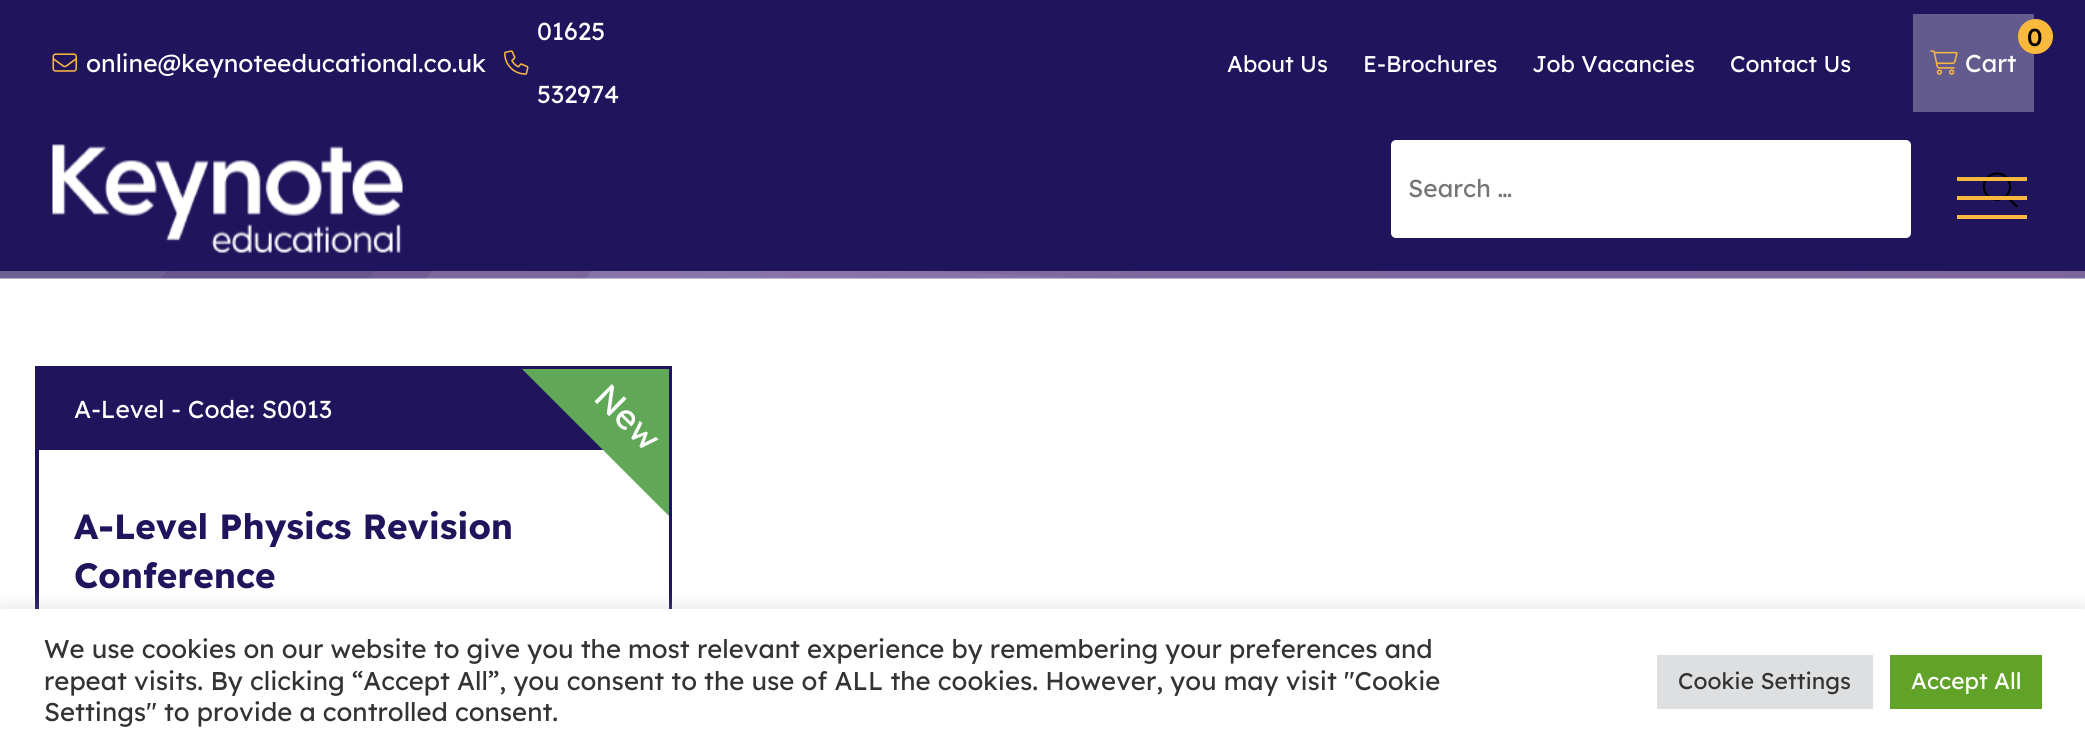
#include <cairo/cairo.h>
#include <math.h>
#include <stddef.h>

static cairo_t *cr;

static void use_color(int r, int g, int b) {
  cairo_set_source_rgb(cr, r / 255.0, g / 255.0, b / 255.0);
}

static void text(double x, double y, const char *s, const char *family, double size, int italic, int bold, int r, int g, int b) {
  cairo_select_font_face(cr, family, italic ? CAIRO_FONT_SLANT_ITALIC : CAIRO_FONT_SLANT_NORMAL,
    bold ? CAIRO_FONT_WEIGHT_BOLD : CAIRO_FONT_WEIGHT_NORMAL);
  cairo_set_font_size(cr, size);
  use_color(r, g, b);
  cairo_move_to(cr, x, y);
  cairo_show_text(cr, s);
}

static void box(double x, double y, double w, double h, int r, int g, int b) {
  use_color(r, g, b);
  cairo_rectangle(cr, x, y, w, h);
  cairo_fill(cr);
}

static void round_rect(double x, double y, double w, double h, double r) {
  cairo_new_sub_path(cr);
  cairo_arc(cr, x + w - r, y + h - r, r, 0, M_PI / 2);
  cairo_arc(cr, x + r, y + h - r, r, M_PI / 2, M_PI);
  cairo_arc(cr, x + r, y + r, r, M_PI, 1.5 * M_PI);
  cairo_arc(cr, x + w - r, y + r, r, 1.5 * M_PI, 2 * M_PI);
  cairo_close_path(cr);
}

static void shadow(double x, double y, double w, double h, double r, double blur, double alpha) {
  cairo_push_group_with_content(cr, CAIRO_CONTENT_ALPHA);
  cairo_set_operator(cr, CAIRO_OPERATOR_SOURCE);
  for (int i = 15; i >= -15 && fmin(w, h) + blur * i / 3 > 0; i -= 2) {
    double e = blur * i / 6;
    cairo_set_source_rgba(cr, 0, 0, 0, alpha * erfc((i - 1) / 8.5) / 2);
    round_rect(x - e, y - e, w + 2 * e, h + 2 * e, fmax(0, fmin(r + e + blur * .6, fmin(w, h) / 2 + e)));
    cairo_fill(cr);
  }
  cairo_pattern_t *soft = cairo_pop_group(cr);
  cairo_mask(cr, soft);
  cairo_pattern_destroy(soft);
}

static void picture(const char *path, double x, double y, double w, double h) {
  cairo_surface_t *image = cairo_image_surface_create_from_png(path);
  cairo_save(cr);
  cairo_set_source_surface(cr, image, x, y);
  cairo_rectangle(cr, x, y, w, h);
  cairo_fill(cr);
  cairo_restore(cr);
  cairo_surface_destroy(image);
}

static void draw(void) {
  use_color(255, 255, 255);
  cairo_paint(cr);
  box(0, 0, 2085, 271, 32, 21, 93);
  picture("img_01.png", 52, 53, 25, 19);
  picture("img_02.png", 504, 50, 25, 25);
  box(1913, 14, 121, 98, 99, 91, 142);
  use_color(250, 185, 61);
  cairo_arc(cr, 2035.5, 36.5, 17.5, 0, 2 * M_PI);
  cairo_fill(cr);
  picture("img_03.png", 1930, 50, 28, 25);
  picture("img_04.png", 52, 144, 351, 109);
  use_color(255, 255, 255);
  round_rect(1391, 140, 520, 98, 5);
  cairo_fill(cr);
  picture("img_05.png", 1982, 172, 36, 36);
  box(1957, 177, 70, 4, 250, 185, 61);
  box(1957, 196, 70, 4, 250, 185, 61);
  box(1957, 215, 70, 4, 250, 185, 61);
  picture("img_06.png", 0, 271, 2085, 8);
  cairo_rectangle(cr, 37, 368, 633, 334);
  use_color(32, 21, 93);
  cairo_set_line_width(cr, 4);
  cairo_stroke(cr);
  box(39, 370, 564, 80, 32, 21, 93);
  box(668, 450, 1, 159, 255, 255, 255);
  cairo_save(cr);
  cairo_rectangle(cr, 39, 369, 630, 331);
  cairo_clip(cr);
  use_color(97, 167, 88);
  cairo_new_path(cr);
  cairo_move_to(cr, 610, 281);
  cairo_line_to(cr, 763, 434);
  cairo_line_to(cr, 675, 522);
  cairo_line_to(cr, 522, 369);
  cairo_close_path(cr);
  cairo_fill(cr);
  cairo_restore(cr);
  use_color(172, 171, 171);
  shadow(0, 607, 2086, 144, 0, 9, 0.3);
  box(0, 609, 2085, 143, 255, 255, 255);
  box(1657, 655, 216, 54, 222, 223, 224);
  box(1890, 655, 152, 54, 97, 162, 41);
  text(86, 72, "online@keynoteeducational.co.uk", "Lexend", 24.5, 0, 0, 255, 255, 255);
  text(537, 40, "01625", "Lexend", 24.5, 0, 0, 255, 255, 255);
  text(537, 103, "532974", "Lexend", 24.5, 0, 0, 255, 255, 255);
  text(1227, 72, "About Us", "Lexend", 22.75, 0, 0, 255, 255, 255);
  text(1363, 72, "E-Brochures", "Lexend", 22.75, 0, 0, 255, 255, 255);
  text(1532, 72, "Job Vacancies", "Lexend", 22.75, 0, 0, 255, 255, 255);
  text(1730, 72, "Contact Us", "Lexend", 22.75, 0, 0, 255, 255, 255);
  text(2027, 46, "0", "Lexend Medium", 24.5, 0, 0, 0, 0, 0);
  text(1965, 72, "Cart", "Lexend", 24.5, 0, 0, 255, 255, 255);
  text(1408, 197, "Search …", "Lexend", 24.5, 0, 0, 117, 117, 117);
  text(74, 418, "A-Level - Code: S0013", "Lexend", 24.5, 0, 0, 255, 255, 255);
  cairo_save(cr);
  cairo_translate(cr, 592, 399);
  cairo_rotate(cr, 45 * M_PI / 180);
  text(0, 0, "New", "Lexend", 35, 0, 0, 255, 255, 255);
  cairo_restore(cr);
  text(74, 539, "A-Level Physics Revision", "Lexend", 35, 0, 1, 32, 21, 93);
  text(74, 588, "Conference", "Lexend", 35, 0, 1, 32, 21, 93);
  text(44, 658, "We use cookies on our website to give you the most relevant experience by remembering your preferences and", "Lexend", 25.67, 0, 0, 51, 51, 51);
  text(44, 690, "repeat visits. By clicking “Accept All”, you consent to the use of ALL the cookies. However, you may visit \"Cookie", "Lexend", 25.67, 0, 0, 51, 51, 51);
  text(44, 721, "Settings\" to provide a controlled consent.", "Lexend", 25.67, 0, 0, 51, 51, 51);
  text(1678, 689, "Cookie Settings", "Lexend", 22.75, 0, 0, 51, 51, 51);
  text(1911, 689, "Accept All", "Lexend", 22.75, 0, 0, 255, 255, 255);
}

int main(void) {
  cairo_surface_t *surface = cairo_image_surface_create(CAIRO_FORMAT_RGB24, 2085, 752);
  cr = cairo_create(surface);
  cairo_font_options_t *options = cairo_font_options_create();
  cairo_font_options_set_hint_metrics(options, CAIRO_HINT_METRICS_OFF);
  cairo_font_options_set_hint_style(options, CAIRO_HINT_STYLE_NONE);
  cairo_set_font_options(cr, options);
  cairo_set_miter_limit(cr, 4);
  draw();
  cairo_surface_write_to_png(surface, "out.png");
  cairo_font_options_destroy(options);
  cairo_destroy(cr);
  cairo_surface_destroy(surface);
  return 0;
}
